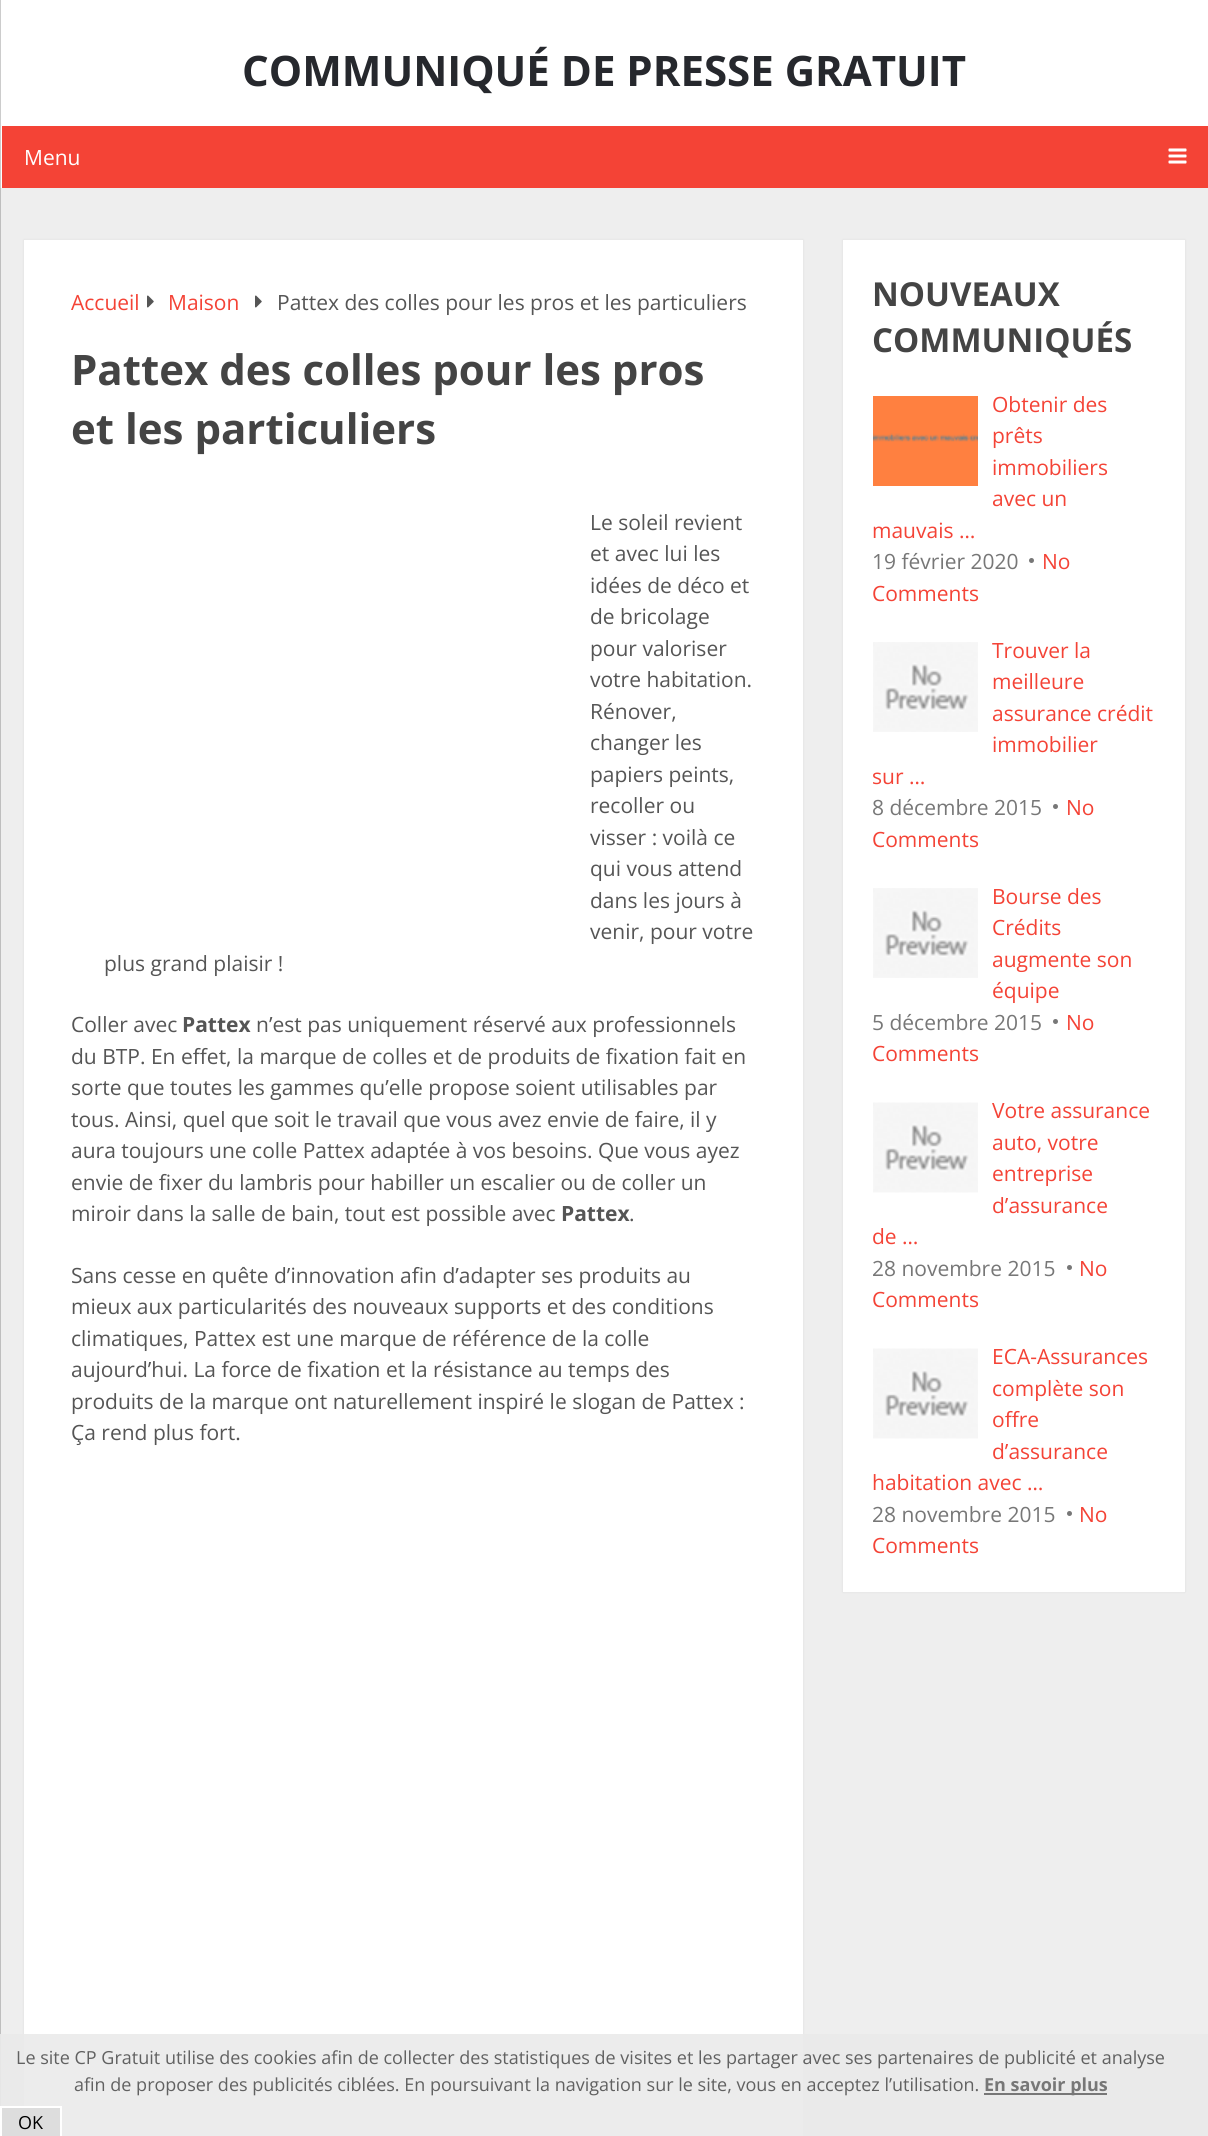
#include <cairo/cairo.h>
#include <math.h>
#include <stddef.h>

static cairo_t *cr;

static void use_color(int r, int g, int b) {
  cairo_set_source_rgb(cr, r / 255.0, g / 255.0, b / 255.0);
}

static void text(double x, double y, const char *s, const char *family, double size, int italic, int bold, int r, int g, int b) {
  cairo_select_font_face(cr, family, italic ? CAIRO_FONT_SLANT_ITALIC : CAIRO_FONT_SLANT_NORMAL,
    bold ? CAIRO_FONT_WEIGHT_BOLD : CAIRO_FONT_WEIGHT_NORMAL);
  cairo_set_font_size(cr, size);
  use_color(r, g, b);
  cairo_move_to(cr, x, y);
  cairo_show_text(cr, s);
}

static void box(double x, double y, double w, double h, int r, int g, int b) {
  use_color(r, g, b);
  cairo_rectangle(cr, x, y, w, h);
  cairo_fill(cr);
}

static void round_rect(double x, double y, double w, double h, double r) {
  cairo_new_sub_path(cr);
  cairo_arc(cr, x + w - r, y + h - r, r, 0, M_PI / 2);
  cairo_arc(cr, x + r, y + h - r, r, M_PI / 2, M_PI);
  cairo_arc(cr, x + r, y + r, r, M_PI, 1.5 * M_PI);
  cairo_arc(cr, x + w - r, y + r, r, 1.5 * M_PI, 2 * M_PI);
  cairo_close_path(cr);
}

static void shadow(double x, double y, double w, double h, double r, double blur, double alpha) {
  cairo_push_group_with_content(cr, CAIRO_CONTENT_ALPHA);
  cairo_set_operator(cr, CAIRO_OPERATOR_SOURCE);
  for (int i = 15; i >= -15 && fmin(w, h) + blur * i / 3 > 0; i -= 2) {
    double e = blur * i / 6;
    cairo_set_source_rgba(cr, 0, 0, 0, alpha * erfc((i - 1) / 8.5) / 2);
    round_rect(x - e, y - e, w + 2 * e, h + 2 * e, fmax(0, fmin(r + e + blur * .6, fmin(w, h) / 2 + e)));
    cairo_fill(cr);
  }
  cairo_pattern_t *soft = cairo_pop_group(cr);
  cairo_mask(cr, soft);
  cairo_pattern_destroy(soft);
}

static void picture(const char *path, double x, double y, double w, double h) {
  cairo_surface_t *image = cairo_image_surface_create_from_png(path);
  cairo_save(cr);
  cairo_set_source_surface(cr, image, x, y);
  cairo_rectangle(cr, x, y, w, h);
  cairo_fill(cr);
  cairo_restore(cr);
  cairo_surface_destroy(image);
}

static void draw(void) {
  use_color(238, 238, 238);
  cairo_paint(cr);
  box(0, 188, 1, 1918, 190, 190, 190);
  box(1, 0, 1207, 188, 255, 255, 255);
  box(0, 0, 1, 188, 204, 204, 204);
  box(2, 126, 1206, 62, 244, 67, 54);
  picture("img_01.png", 1168, 148, 19, 16);
  use_color(50, 50, 50);
  shadow(24, 240, 779, 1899, 0, 1, 0.1);
  box(24, 240, 779, 1896, 255, 255, 255);
  picture("img_02.png", 147, 295, 7, 13);
  picture("img_02.png", 255, 295, 7, 13);
  use_color(50, 50, 50);
  shadow(843, 240, 342, 1352, 0, 1, 0.1);
  box(843, 240, 342, 1352, 255, 255, 255);
  picture("img_03.png", 873, 396, 105, 90);
  use_color(119, 119, 119);
  cairo_arc(cr, 1031.5, 560.5, 2.5, 0, 2 * M_PI);
  cairo_fill(cr);
  picture("img_04.png", 873, 642, 105, 90);
  cairo_arc(cr, 1055.5, 806.5, 2.5, 0, 2 * M_PI);
  cairo_fill(cr);
  picture("img_04.png", 873, 888, 105, 90);
  cairo_arc(cr, 1055.5, 1021.5, 2.5, 0, 2 * M_PI);
  cairo_fill(cr);
  picture("img_05.png", 873, 1102, 105, 91);
  cairo_arc(cr, 1069.5, 1267.5, 2.5, 0, 2 * M_PI);
  cairo_fill(cr);
  picture("img_05.png", 873, 1348, 105, 91);
  cairo_arc(cr, 1069.5, 1513.5, 2.5, 0, 2 * M_PI);
  cairo_fill(cr);
  cairo_set_source_rgba(cr, 0.918, 0.918, 0.918, 0.9);
  cairo_rectangle(cr, 0, 2034, 1208, 102);
  cairo_fill(cr);
  box(984, 2093, 123, 2, 119, 119, 119);
  use_color(221, 221, 221);
  cairo_rectangle(cr, 1, 2107, 60, 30);
  cairo_fill_preserve(cr);
  use_color(255, 255, 255);
  cairo_stroke(cr);
  text(242, 86, "COMMUNIQUÉ DE PRESSE GRATUIT", "Open Sans", 42, 0, 1, 38, 40, 45);
  text(24, 165, "Menu", "Open Sans", 21, 0, 0, 255, 255, 255);
  text(71, 310, "Accueil", "Open Sans", 21, 0, 0, 244, 67, 54);
  text(168, 310, "Maison", "Open Sans", 21, 0, 0, 244, 67, 54);
  text(277, 310, "Pattex des colles pour les pros et les particuliers", "Open Sans", 21, 0, 0, 85, 85, 85);
  text(71, 385, "Pattex des colles pour les pros", "Open Sans", 42, 0, 1, 68, 68, 68);
  text(71, 444, "et les particuliers", "Open Sans", 42, 0, 1, 68, 68, 68);
  text(590, 530, "Le soleil revient", "Open Sans", 21, 0, 0, 85, 85, 85);
  text(590, 561, "et avec lui les", "Open Sans", 21, 0, 0, 85, 85, 85);
  text(590, 593, "idées de déco et", "Open Sans", 21, 0, 0, 85, 85, 85);
  text(590, 624, "de bricolage", "Open Sans", 21, 0, 0, 85, 85, 85);
  text(590, 656, "pour valoriser", "Open Sans", 21, 0, 0, 85, 85, 85);
  text(590, 687, "votre habitation.", "Open Sans", 21, 0, 0, 85, 85, 85);
  text(590, 719, "Rénover,", "Open Sans", 21, 0, 0, 85, 85, 85);
  text(590, 750, "changer les", "Open Sans", 21, 0, 0, 85, 85, 85);
  text(590, 782, "papiers peints,", "Open Sans", 21, 0, 0, 85, 85, 85);
  text(590, 813, "recoller ou", "Open Sans", 21, 0, 0, 85, 85, 85);
  text(590, 845, "visser : voilà ce", "Open Sans", 21, 0, 0, 85, 85, 85);
  text(590, 876, "qui vous attend", "Open Sans", 21, 0, 0, 85, 85, 85);
  text(590, 908, "dans les jours à", "Open Sans", 21, 0, 0, 85, 85, 85);
  text(590, 939, "venir, pour votre", "Open Sans", 21, 0, 0, 85, 85, 85);
  text(104, 971, "plus grand plaisir !", "Open Sans", 21, 0, 0, 85, 85, 85);
  text(71, 1032, "Coller avec", "Open Sans", 21, 0, 0, 85, 85, 85);
  text(182, 1032, "Pattex", "Open Sans", 21, 0, 1, 85, 85, 85);
  text(256, 1032, "n’est pas uniquement réservé aux professionnels", "Open Sans", 21, 0, 0, 85, 85, 85);
  text(71, 1064, "du BTP. En effet, la marque de colles et de produits de fixation fait en", "Open Sans", 21, 0, 0, 85, 85, 85);
  text(71, 1095, "sorte que toutes les gammes qu’elle propose soient utilisables par", "Open Sans", 21, 0, 0, 85, 85, 85);
  text(71, 1127, "tous. Ainsi, quel que soit le travail que vous avez envie de faire, il y", "Open Sans", 21, 0, 0, 85, 85, 85);
  text(71, 1158, "aura toujours une colle Pattex adaptée à vos besoins. Que vous ayez", "Open Sans", 21, 0, 0, 85, 85, 85);
  text(71, 1190, "envie de fixer du lambris pour habiller un escalier ou de coller un", "Open Sans", 21, 0, 0, 85, 85, 85);
  text(71, 1221, "miroir dans la salle de bain, tout est possible avec", "Open Sans", 21, 0, 0, 85, 85, 85);
  text(561, 1221, "Pattex", "Open Sans", 21, 0, 1, 85, 85, 85);
  text(629, 1221, ".", "Open Sans", 21, 0, 0, 85, 85, 85);
  text(71, 1283, "Sans cesse en quête d’innovation afin d’adapter ses produits au", "Open Sans", 21, 0, 0, 85, 85, 85);
  text(71, 1314, "mieux aux particularités des nouveaux supports et des conditions", "Open Sans", 21, 0, 0, 85, 85, 85);
  text(71, 1346, "climatiques, Pattex est une marque de référence de la colle", "Open Sans", 21, 0, 0, 85, 85, 85);
  text(71, 1377, "aujourd’hui. La force de fixation et la résistance au temps des", "Open Sans", 21, 0, 0, 85, 85, 85);
  text(71, 1409, "produits de la marque ont naturellement inspiré le slogan de Pattex :", "Open Sans", 21, 0, 0, 85, 85, 85);
  text(71, 1440, "Ça rend plus fort.", "Open Sans", 21, 0, 0, 85, 85, 85);
  text(872, 306, "NOUVEAUX", "Open Sans", 33, 0, 1, 68, 68, 68);
  text(872, 352, "COMMUNIQUÉS", "Open Sans", 33, 0, 1, 68, 68, 68);
  text(992, 412, "Obtenir des", "Open Sans", 21, 0, 0, 244, 67, 54);
  text(992, 443, "prêts", "Open Sans", 21, 0, 0, 244, 67, 54);
  text(992, 475, "immobiliers", "Open Sans", 21, 0, 0, 244, 67, 54);
  text(992, 506, "avec un", "Open Sans", 21, 0, 0, 244, 67, 54);
  text(872, 538, "mauvais …", "Open Sans", 21, 0, 0, 244, 67, 54);
  text(872, 569, "19 février 2020", "Open Sans", 21, 0, 0, 119, 119, 119);
  text(1042, 569, "No", "Open Sans", 21, 0, 0, 244, 67, 54);
  text(872, 601, "Comments", "Open Sans", 21, 0, 0, 244, 67, 54);
  text(992, 658, "Trouver la", "Open Sans", 21, 0, 0, 244, 67, 54);
  text(992, 689, "meilleure", "Open Sans", 21, 0, 0, 244, 67, 54);
  text(992, 721, "assurance crédit", "Open Sans", 21, 0, 0, 244, 67, 54);
  text(992, 752, "immobilier", "Open Sans", 21, 0, 0, 244, 67, 54);
  text(872, 784, "sur …", "Open Sans", 21, 0, 0, 244, 67, 54);
  text(872, 815, "8 décembre 2015", "Open Sans", 21, 0, 0, 119, 119, 119);
  text(1066, 815, "No", "Open Sans", 21, 0, 0, 244, 67, 54);
  text(872, 847, "Comments", "Open Sans", 21, 0, 0, 244, 67, 54);
  text(992, 904, "Bourse des", "Open Sans", 21, 0, 0, 244, 67, 54);
  text(992, 935, "Crédits", "Open Sans", 21, 0, 0, 244, 67, 54);
  text(992, 967, "augmente son", "Open Sans", 21, 0, 0, 244, 67, 54);
  text(992, 998, "équipe", "Open Sans", 21, 0, 0, 244, 67, 54);
  text(872, 1030, "5 décembre 2015", "Open Sans", 21, 0, 0, 119, 119, 119);
  text(1066, 1030, "No", "Open Sans", 21, 0, 0, 244, 67, 54);
  text(872, 1061, "Comments", "Open Sans", 21, 0, 0, 244, 67, 54);
  text(992, 1118, "Votre assurance", "Open Sans", 21, 0, 0, 244, 67, 54);
  text(992, 1150, "auto, votre", "Open Sans", 21, 0, 0, 244, 67, 54);
  text(992, 1181, "entreprise", "Open Sans", 21, 0, 0, 244, 67, 54);
  text(992, 1213, "d’assurance", "Open Sans", 21, 0, 0, 244, 67, 54);
  text(872, 1244, "de …", "Open Sans", 21, 0, 0, 244, 67, 54);
  text(872, 1276, "28 novembre 2015", "Open Sans", 21, 0, 0, 119, 119, 119);
  text(1079, 1276, "No", "Open Sans", 21, 0, 0, 244, 67, 54);
  text(872, 1307, "Comments", "Open Sans", 21, 0, 0, 244, 67, 54);
  text(992, 1364, "ECA-Assurances", "Open Sans", 21, 0, 0, 244, 67, 54);
  text(992, 1396, "complète son", "Open Sans", 21, 0, 0, 244, 67, 54);
  text(992, 1427, "offre", "Open Sans", 21, 0, 0, 244, 67, 54);
  text(992, 1459, "d’assurance", "Open Sans", 21, 0, 0, 244, 67, 54);
  text(872, 1490, "habitation avec …", "Open Sans", 21, 0, 0, 244, 67, 54);
  text(872, 1522, "28 novembre 2015", "Open Sans", 21, 0, 0, 119, 119, 119);
  text(1079, 1522, "No", "Open Sans", 21, 0, 0, 244, 67, 54);
  text(872, 1553, "Comments", "Open Sans", 21, 0, 0, 244, 67, 54);
  text(16, 2064, "Le site CP Gratuit utilise des cookies afin de collecter des statistiques de visites et les partager avec ses partenaires de publicité et analyse", "Open Sans", 18, 0, 0, 97, 97, 97);
  text(74, 2091, "afin de proposer des publicités ciblées. En poursuivant la navigation sur le site, vous en acceptez l’utilisation.", "Open Sans", 18, 0, 0, 97, 97, 97);
  text(984, 2091, "En savoir plus", "Open Sans", 18, 0, 1, 119, 119, 119);
  text(18, 2129, "OK", "Open Sans", 18, 0, 0, 0, 0, 0);
}

int main(void) {
  cairo_surface_t *surface = cairo_image_surface_create(CAIRO_FORMAT_RGB24, 1208, 2136);
  cr = cairo_create(surface);
  cairo_font_options_t *options = cairo_font_options_create();
  cairo_font_options_set_hint_metrics(options, CAIRO_HINT_METRICS_OFF);
  cairo_font_options_set_hint_style(options, CAIRO_HINT_STYLE_NONE);
  cairo_set_font_options(cr, options);
  cairo_set_miter_limit(cr, 4);
  draw();
  cairo_surface_write_to_png(surface, "out.png");
  cairo_font_options_destroy(options);
  cairo_destroy(cr);
  cairo_surface_destroy(surface);
  return 0;
}
